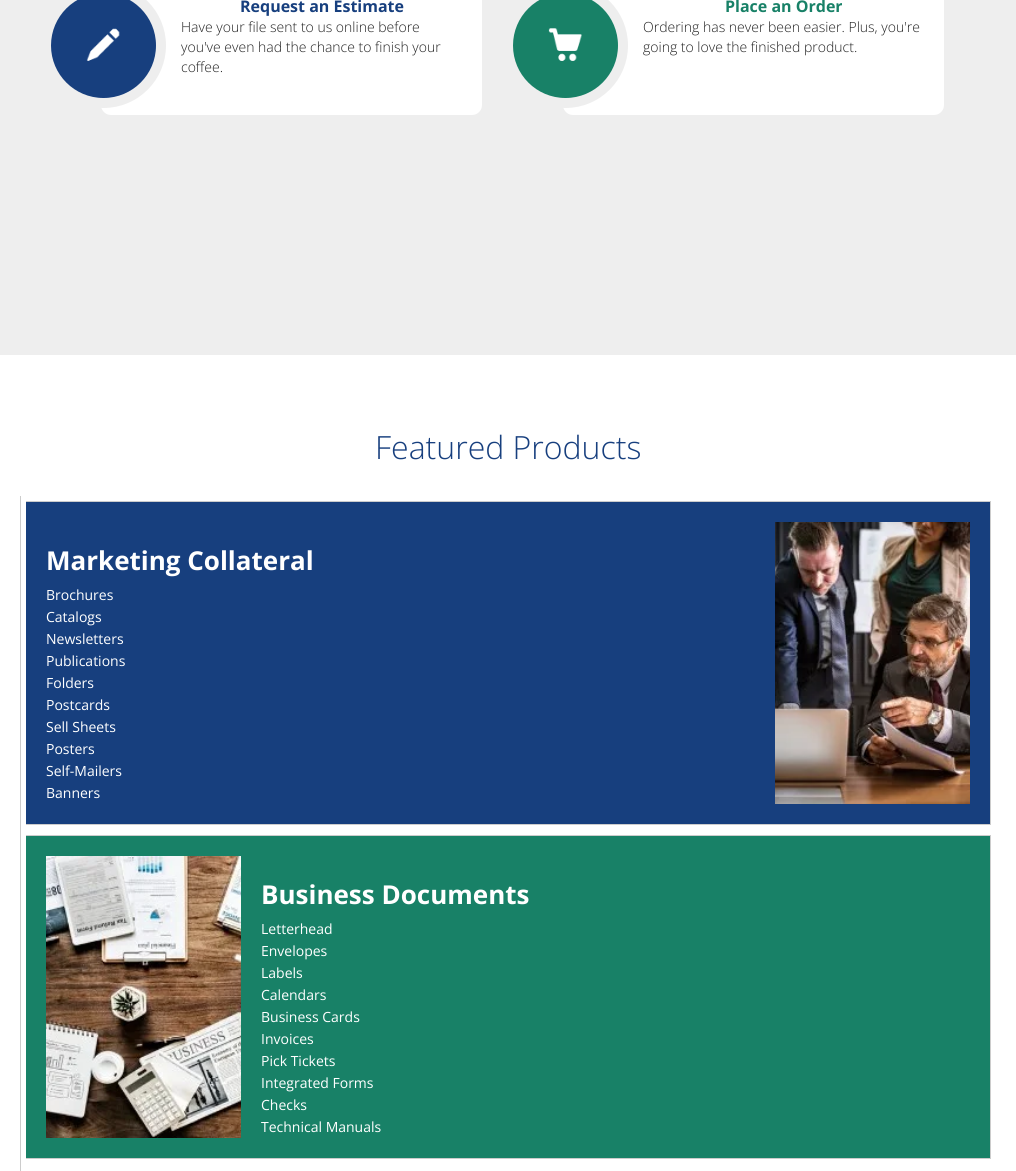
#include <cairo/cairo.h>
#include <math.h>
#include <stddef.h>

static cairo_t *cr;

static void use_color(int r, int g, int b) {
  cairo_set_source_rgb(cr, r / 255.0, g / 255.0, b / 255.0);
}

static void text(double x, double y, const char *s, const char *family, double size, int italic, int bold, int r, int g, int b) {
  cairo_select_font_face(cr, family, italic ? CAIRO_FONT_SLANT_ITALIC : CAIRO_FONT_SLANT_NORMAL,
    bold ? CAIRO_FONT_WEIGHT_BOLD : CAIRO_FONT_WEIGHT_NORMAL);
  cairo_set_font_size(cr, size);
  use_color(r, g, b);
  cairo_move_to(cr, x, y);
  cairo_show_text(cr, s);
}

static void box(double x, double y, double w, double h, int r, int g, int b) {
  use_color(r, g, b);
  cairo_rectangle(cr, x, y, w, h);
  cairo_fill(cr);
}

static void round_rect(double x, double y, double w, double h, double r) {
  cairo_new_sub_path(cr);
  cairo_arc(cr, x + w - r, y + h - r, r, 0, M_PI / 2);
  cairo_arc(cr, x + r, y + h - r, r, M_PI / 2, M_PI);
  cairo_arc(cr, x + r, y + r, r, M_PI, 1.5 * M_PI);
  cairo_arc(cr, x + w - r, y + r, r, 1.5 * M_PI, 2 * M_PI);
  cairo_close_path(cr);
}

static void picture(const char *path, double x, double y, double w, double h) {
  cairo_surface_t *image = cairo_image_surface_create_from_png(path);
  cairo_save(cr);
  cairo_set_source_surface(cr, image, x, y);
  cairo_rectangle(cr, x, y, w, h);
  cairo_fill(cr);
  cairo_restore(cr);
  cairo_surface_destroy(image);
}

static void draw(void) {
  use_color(238, 238, 238);
  cairo_paint(cr);
  use_color(255, 255, 255);
  round_rect(101, -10, 381, 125, 10);
  cairo_fill(cr);
  use_color(23, 63, 126);
  cairo_arc(cr, 103.5, 45.5, 57.5, 0, 2 * M_PI);
  cairo_fill_preserve(cr);
  use_color(238, 238, 238);
  cairo_set_line_width(cr, 10);
  cairo_stroke(cr);
  picture("img_01.png", 86, 28, 34, 33);
  use_color(255, 255, 255);
  round_rect(563, -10, 381, 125, 10);
  cairo_fill(cr);
  use_color(24, 129, 103);
  cairo_arc(cr, 565.5, 45.5, 57.5, 0, 2 * M_PI);
  cairo_fill_preserve(cr);
  use_color(238, 238, 238);
  cairo_stroke(cr);
  picture("img_02.png", 548, 28, 34, 33);
  box(0, 355, 1016, 816, 255, 255, 255);
  box(20, 496, 1, 675, 204, 204, 204);
  box(26, 502, 964, 322, 23, 63, 126);
  box(26, 501, 965, 1, 204, 204, 204);
  box(990, 501, 1, 324, 204, 204, 204);
  box(26, 824, 965, 1, 204, 204, 204);
  picture("img_03.png", 775, 522, 195, 282);
  box(26, 836, 964, 322, 24, 129, 103);
  box(26, 835, 965, 1, 204, 204, 204);
  box(990, 835, 1, 324, 204, 204, 204);
  box(26, 1158, 965, 1, 204, 204, 204);
  picture("img_04.png", 46, 856, 195, 282);
  text(240, 12, "Request an Estimate", "Open Sans", 16, 0, 1, 23, 63, 126);
  text(181, 32, "Have your file sent to us online before", "Open Sans Light", 14, 0, 0, 34, 34, 34);
  text(181, 52, "you've even had the chance to finish your", "Open Sans Light", 14, 0, 0, 34, 34, 34);
  text(181, 72, "coffee.", "Open Sans Light", 14, 0, 0, 34, 34, 34);
  text(725, 12, "Place an Order", "Open Sans", 16, 0, 1, 24, 129, 103);
  text(643, 32, "Ordering has never been easier. Plus, you're", "Open Sans Light", 14, 0, 0, 34, 34, 34);
  text(643, 52, "going to love the finished product.", "Open Sans Light", 14, 0, 0, 34, 34, 34);
  text(375, 459, "Featured Products", "Open Sans Light", 32, 0, 0, 23, 63, 126);
  text(46, 570, "Marketing Collateral", "Open Sans", 26, 0, 1, 255, 255, 255);
  text(46, 600, "Brochures", "Open Sans", 14, 0, 0, 255, 255, 255);
  text(46, 622, "Catalogs", "Open Sans", 14, 0, 0, 255, 255, 255);
  text(46, 644, "Newsletters", "Open Sans", 14, 0, 0, 255, 255, 255);
  text(46, 666, "Publications", "Open Sans", 14, 0, 0, 255, 255, 255);
  text(46, 688, "Folders", "Open Sans", 14, 0, 0, 255, 255, 255);
  text(46, 710, "Postcards", "Open Sans", 14, 0, 0, 255, 255, 255);
  text(46, 732, "Sell Sheets", "Open Sans", 14, 0, 0, 255, 255, 255);
  text(46, 754, "Posters", "Open Sans", 14, 0, 0, 255, 255, 255);
  text(46, 776, "Self-Mailers", "Open Sans", 14, 0, 0, 255, 255, 255);
  text(46, 798, "Banners", "Open Sans", 14, 0, 0, 255, 255, 255);
  text(261, 904, "Business Documents", "Open Sans", 26, 0, 1, 255, 255, 255);
  text(261, 934, "Letterhead", "Open Sans", 14, 0, 0, 255, 255, 255);
  text(261, 956, "Envelopes", "Open Sans", 14, 0, 0, 255, 255, 255);
  text(261, 978, "Labels", "Open Sans", 14, 0, 0, 255, 255, 255);
  text(261, 1000, "Calendars", "Open Sans", 14, 0, 0, 255, 255, 255);
  text(261, 1022, "Business Cards", "Open Sans", 14, 0, 0, 255, 255, 255);
  text(261, 1044, "Invoices", "Open Sans", 14, 0, 0, 255, 255, 255);
  text(261, 1066, "Pick Tickets", "Open Sans", 14, 0, 0, 255, 255, 255);
  text(261, 1088, "Integrated Forms", "Open Sans", 14, 0, 0, 255, 255, 255);
  text(261, 1110, "Checks", "Open Sans", 14, 0, 0, 255, 255, 255);
  text(261, 1132, "Technical Manuals", "Open Sans", 14, 0, 0, 255, 255, 255);
}

int main(void) {
  cairo_surface_t *surface = cairo_image_surface_create(CAIRO_FORMAT_RGB24, 1016, 1171);
  cr = cairo_create(surface);
  cairo_font_options_t *options = cairo_font_options_create();
  cairo_font_options_set_hint_metrics(options, CAIRO_HINT_METRICS_OFF);
  cairo_font_options_set_hint_style(options, CAIRO_HINT_STYLE_NONE);
  cairo_set_font_options(cr, options);
  cairo_set_miter_limit(cr, 4);
  draw();
  cairo_surface_write_to_png(surface, "out.png");
  cairo_font_options_destroy(options);
  cairo_destroy(cr);
  cairo_surface_destroy(surface);
  return 0;
}
